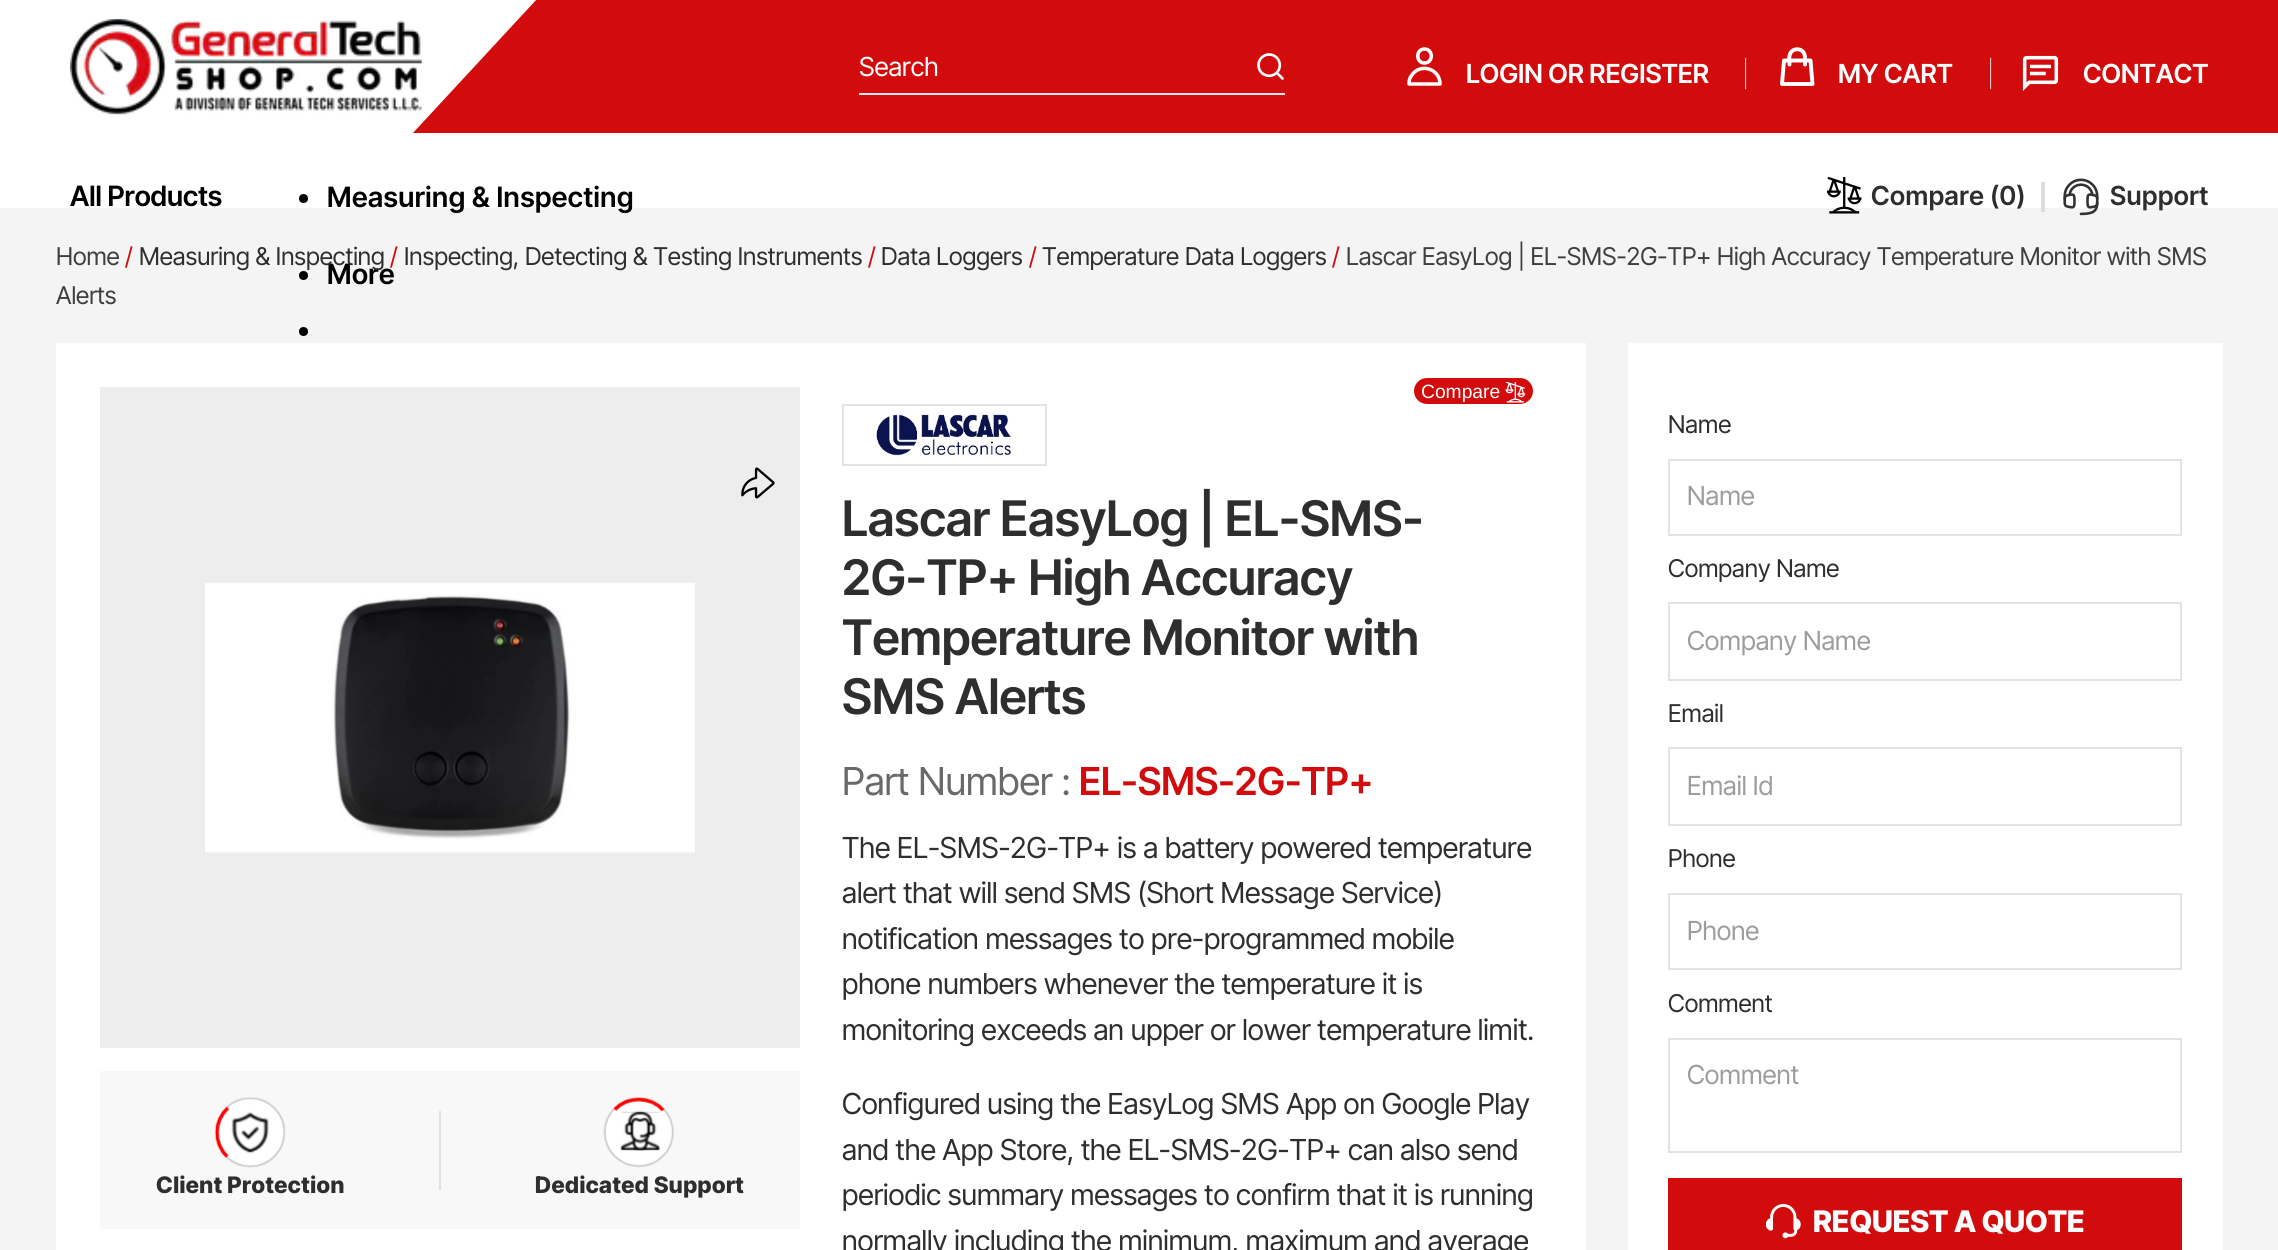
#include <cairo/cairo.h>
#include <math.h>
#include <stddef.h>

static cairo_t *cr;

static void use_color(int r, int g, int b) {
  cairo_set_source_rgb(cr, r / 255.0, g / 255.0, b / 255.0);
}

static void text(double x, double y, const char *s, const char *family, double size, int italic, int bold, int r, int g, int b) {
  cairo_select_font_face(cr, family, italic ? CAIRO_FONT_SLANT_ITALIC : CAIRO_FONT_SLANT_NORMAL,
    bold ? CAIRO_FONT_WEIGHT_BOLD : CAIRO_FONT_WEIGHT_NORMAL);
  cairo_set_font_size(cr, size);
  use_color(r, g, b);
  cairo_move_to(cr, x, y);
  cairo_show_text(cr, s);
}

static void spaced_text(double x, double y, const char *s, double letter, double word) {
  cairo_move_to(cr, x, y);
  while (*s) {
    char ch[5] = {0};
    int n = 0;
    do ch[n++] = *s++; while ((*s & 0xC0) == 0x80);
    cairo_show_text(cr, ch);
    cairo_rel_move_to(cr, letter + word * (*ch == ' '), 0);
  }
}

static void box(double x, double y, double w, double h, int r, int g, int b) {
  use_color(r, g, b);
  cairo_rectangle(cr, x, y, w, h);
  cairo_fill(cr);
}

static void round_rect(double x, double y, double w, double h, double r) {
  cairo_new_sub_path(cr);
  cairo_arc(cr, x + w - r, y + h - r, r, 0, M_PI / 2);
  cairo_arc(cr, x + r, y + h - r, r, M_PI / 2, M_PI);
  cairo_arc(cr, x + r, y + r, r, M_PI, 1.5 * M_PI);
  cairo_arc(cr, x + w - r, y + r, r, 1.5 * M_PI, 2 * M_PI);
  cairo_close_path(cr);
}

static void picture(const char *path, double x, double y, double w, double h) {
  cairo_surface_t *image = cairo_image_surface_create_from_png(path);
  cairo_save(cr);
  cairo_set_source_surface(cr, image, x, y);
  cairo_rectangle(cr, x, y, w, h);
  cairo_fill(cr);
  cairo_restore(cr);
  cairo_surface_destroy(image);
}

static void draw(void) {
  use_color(255, 255, 255);
  cairo_paint(cr);
  box(413, 0, 1865, 133, 210, 12, 13);
  use_color(255, 255, 255);
  cairo_new_path(cr);
  cairo_move_to(cr, -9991, -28);
  cairo_line_to(cr, 562, -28);
  cairo_line_to(cr, 387, 161);
  cairo_line_to(cr, -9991, 161);
  cairo_close_path(cr);
  cairo_fill(cr);
  picture("img_01.png", 70, 19, 352, 96);
  box(859, 93, 426, 2, 232, 232, 232);
  picture("img_02.png", 1257, 53, 27, 27);
  cairo_new_path(cr);
  cairo_move_to(cr, 1424.5, 63);
  cairo_curve_to(cr, 1433.5, 63, 1433.5, 49, 1424.5, 49);
  cairo_curve_to(cr, 1415.5, 49, 1415.5, 63, 1424.5, 63);
  cairo_close_path(cr);
  cairo_move_to(cr, 1440, 84);
  cairo_curve_to(cr, 1440, 68.5, 1420, 62.5, 1411.5, 75.5);
  cairo_curve_to(cr, 1409.5, 78, 1409, 81, 1409, 84);
  cairo_close_path(cr);
  use_color(255, 255, 255);
  cairo_set_line_width(cr, 3.5);
  cairo_set_line_cap(cr, CAIRO_LINE_CAP_ROUND);
  cairo_set_line_join(cr, CAIRO_LINE_JOIN_ROUND);
  cairo_stroke(cr);
  cairo_new_path(cr);
  cairo_move_to(cr, 1805, 64.5);
  cairo_curve_to(cr, 1805, 61.5, 1805.5, 57.5, 1804.5, 54.5);
  cairo_curve_to(cr, 1802.5, 48, 1793.5, 47.5, 1790.5, 53);
  cairo_curve_to(cr, 1788.5, 56.5, 1789.5, 61, 1789.5, 64.5);
  cairo_move_to(cr, 1784, 60.5);
  cairo_line_to(cr, 1810.5, 60.5);
  cairo_line_to(cr, 1812.5, 84);
  cairo_line_to(cr, 1782, 84);
  cairo_close_path(cr);
  cairo_set_line_width(cr, 3.9);
  cairo_stroke(cr);
  picture("img_03.png", 2022, 55, 37, 36);
  use_color(0, 0, 0);
  cairo_arc(cr, 303.5, 198.5, 4.5, 0, 2 * M_PI);
  cairo_fill(cr);
  box(0, 208, 2278, 1042, 244, 244, 244);
  use_color(0, 0, 0);
  cairo_arc(cr, 303.5, 275.5, 4.5, 0, 2 * M_PI);
  cairo_fill(cr);
  cairo_arc(cr, 303.5, 331.5, 4.5, 0, 2 * M_PI);
  cairo_fill(cr);
  picture("img_04.png", 1827, 177, 35, 37);
  box(2041, 182, 4, 30, 221, 221, 221);
  picture("img_05.png", 2063, 178, 36, 38);
  box(56, 343, 1530, 907, 255, 255, 255);
  use_color(210, 12, 13);
  round_rect(1414, 378, 119, 26, 13);
  cairo_fill(cr);
  picture("img_06.png", 1505, 382, 21, 21);
  box(100, 387, 700, 661, 237, 237, 237);
  picture("img_07.png", 741, 467, 34, 32);
  picture("img_08.png", 205, 582, 490, 271);
  box(100, 1071, 700, 158, 248, 248, 248);
  picture("img_09.png", 214, 1097, 72, 71);
  box(439, 1111, 2, 79, 223, 223, 223);
  picture("img_10.png", 603, 1097, 71, 71);
  cairo_rectangle(cr, 843, 405, 203, 60);
  use_color(227, 227, 227);
  cairo_set_line_width(cr, 2);
  cairo_set_line_cap(cr, CAIRO_LINE_CAP_BUTT);
  cairo_set_line_join(cr, CAIRO_LINE_JOIN_MITER);
  cairo_stroke(cr);
  picture("img_11.png", 876, 414, 135, 42);
  box(1628, 343, 595, 907, 255, 255, 255);
  cairo_rectangle(cr, 1669, 460, 512, 75);
  use_color(227, 227, 227);
  cairo_stroke(cr);
  cairo_rectangle(cr, 1669, 603, 512, 77);
  cairo_stroke(cr);
  cairo_rectangle(cr, 1669, 748, 512, 77);
  cairo_stroke(cr);
  cairo_rectangle(cr, 1669, 894, 512, 75);
  cairo_stroke(cr);
  cairo_rectangle(cr, 1669, 1039, 512, 113);
  cairo_stroke(cr);
  box(1668, 1178, 514, 72, 210, 12, 13);
  picture("img_12.png", 1766, 1204, 35, 35);
  text(859, 76, "Search", "Inter Tight", 26.25, 0, 0, 255, 255, 255);
  text(1466, 83, "LOGIN OR REGISTER", "Inter Tight SemiBold", 26.25, 0, 0, 255, 255, 255);
  text(1742, 83, "|", "Inter Tight ExtraLight", 26.25, 0, 0, 217, 217, 217);
  text(1838, 83, "MY CART", "Inter Tight SemiBold", 26.25, 0, 0, 255, 255, 255);
  text(1987, 83, "|", "Inter Tight ExtraLight", 26.25, 0, 0, 217, 217, 217);
  text(2083, 83, "CONTACT", "Inter Tight SemiBold", 26.25, 0, 0, 255, 255, 255);
  text(70, 206, "All Products", "Inter Tight SemiBold", 28, 0, 0, 0, 0, 0);
  spaced_text(327, 207, "Measuring & Inspecting", 0.5, 0);
  spaced_text(327, 284, "More", 0.5, 0);
  cairo_set_font_size(cr, 26.25);
  use_color(46, 46, 46);
  spaced_text(1871, 205, "Compare (0)", 0.5, 0);
  spaced_text(2110, 205, "Support", 0.5, 0);
  text(56, 265, "Home", "Inter Tight", 24.5, 0, 0, 63, 63, 63);
  text(125, 265, "/", "Inter Tight", 24.5, 0, 0, 210, 12, 13);
  text(139, 265, "Measuring & Inspecting", "Inter Tight", 24.5, 0, 0, 46, 46, 46);
  text(390, 265, "/", "Inter Tight", 24.5, 0, 0, 210, 12, 13);
  text(404, 265, "Inspecting, Detecting & Testing Instruments", "Inter Tight", 24.5, 0, 0, 46, 46, 46);
  text(868, 265, "/", "Inter Tight", 24.5, 0, 0, 210, 12, 13);
  text(881, 265, "Data Loggers", "Inter Tight", 24.5, 0, 0, 46, 46, 46);
  text(1029, 265, "/", "Inter Tight", 24.5, 0, 0, 210, 12, 13);
  text(1042, 265, "Temperature Data Loggers", "Inter Tight", 24.5, 0, 0, 46, 46, 46);
  text(1332, 265, "/", "Inter Tight", 24.5, 0, 0, 210, 12, 13);
  text(1346, 265, "Lascar EasyLog | EL-SMS-2G-TP+ High Accuracy Temperature Monitor with SMS", "Inter Tight", 24.5, 0, 0, 63, 63, 63);
  text(56, 304, "Alerts", "Inter Tight", 24.5, 0, 0, 63, 63, 63);
  text(1421, 398, "Compare", "Liberation Sans", 19.25, 0, 0, 255, 255, 255);
  cairo_select_font_face(cr, "Inter Tight ExtraBold", CAIRO_FONT_SLANT_NORMAL, CAIRO_FONT_WEIGHT_NORMAL);
  cairo_set_font_size(cr, 22.75);
  use_color(46, 46, 46);
  spaced_text(156, 1193, "Client Protection", 0.5, 0);
  spaced_text(535, 1193, "Dedicated Support", 0.5, 0);
  text(842, 536, "Lascar EasyLog | EL-SMS-", "Inter Tight SemiBold", 49, 0, 0, 46, 46, 46);
  text(842, 595, "2G-TP+ High Accuracy", "Inter Tight SemiBold", 49, 0, 0, 46, 46, 46);
  text(842, 655, "Temperature Monitor with", "Inter Tight SemiBold", 49, 0, 0, 46, 46, 46);
  text(842, 714, "SMS Alerts", "Inter Tight SemiBold", 49, 0, 0, 46, 46, 46);
  text(842, 795, "Part Number :", "Inter Tight", 38.5, 0, 0, 105, 105, 105);
  text(1079, 795, "EL-SMS-2G-TP+", "Inter Tight SemiBold", 38.5, 0, 0, 210, 12, 13);
  text(842, 858, "The EL-SMS-2G-TP+ is a battery powered temperature", "Inter Tight", 28.9, 0, 0, 46, 46, 46);
  text(842, 903, "alert that will send SMS (Short Message Service)", "Inter Tight", 28.9, 0, 0, 46, 46, 46);
  text(842, 949, "notification messages to pre-programmed mobile", "Inter Tight", 28.9, 0, 0, 46, 46, 46);
  text(842, 994, "phone numbers whenever the temperature it is", "Inter Tight", 28.9, 0, 0, 46, 46, 46);
  text(842, 1040, "monitoring exceeds an upper or lower temperature limit.", "Inter Tight", 28.9, 0, 0, 46, 46, 46);
  text(842, 1114, "Configured using the EasyLog SMS App on Google Play", "Inter Tight", 28.9, 0, 0, 46, 46, 46);
  text(842, 1160, "and the App Store, the EL-SMS-2G-TP+ can also send", "Inter Tight", 28.9, 0, 0, 46, 46, 46);
  text(842, 1205, "periodic summary messages to confirm that it is running", "Inter Tight", 28.9, 0, 0, 46, 46, 46);
  text(842, 1251, "normally including the minimum, maximum and average", "Inter Tight", 28.9, 0, 0, 46, 46, 46);
  text(1668, 433, "Name", "Inter Tight", 24.5, 0, 0, 46, 46, 46);
  text(1687, 505, "Name", "Inter Tight", 26.25, 0, 0, 157, 157, 157);
  text(1668, 577, "Company Name", "Inter Tight", 24.5, 0, 0, 46, 46, 46);
  text(1687, 650, "Company Name", "Inter Tight", 26.25, 0, 0, 157, 157, 157);
  text(1668, 722, "Email", "Inter Tight", 24.5, 0, 0, 46, 46, 46);
  text(1687, 795, "Email Id", "Inter Tight", 26.25, 0, 0, 157, 157, 157);
  text(1668, 867, "Phone", "Inter Tight", 24.5, 0, 0, 46, 46, 46);
  text(1687, 940, "Phone", "Inter Tight", 26.25, 0, 0, 157, 157, 157);
  text(1668, 1012, "Comment", "Inter Tight", 24.5, 0, 0, 46, 46, 46);
  text(1687, 1084, "Comment", "Inter Tight", 26.25, 0, 0, 157, 157, 157);
  text(1813, 1232, "REQUEST A QUOTE", "Inter Tight ExtraBold", 29.75, 0, 0, 255, 255, 255);
}

int main(void) {
  cairo_surface_t *surface = cairo_image_surface_create(CAIRO_FORMAT_RGB24, 2278, 1250);
  cr = cairo_create(surface);
  cairo_font_options_t *options = cairo_font_options_create();
  cairo_font_options_set_hint_metrics(options, CAIRO_HINT_METRICS_OFF);
  cairo_font_options_set_hint_style(options, CAIRO_HINT_STYLE_NONE);
  cairo_set_font_options(cr, options);
  cairo_set_miter_limit(cr, 4);
  draw();
  cairo_surface_write_to_png(surface, "out.png");
  cairo_font_options_destroy(options);
  cairo_destroy(cr);
  cairo_surface_destroy(surface);
  return 0;
}
